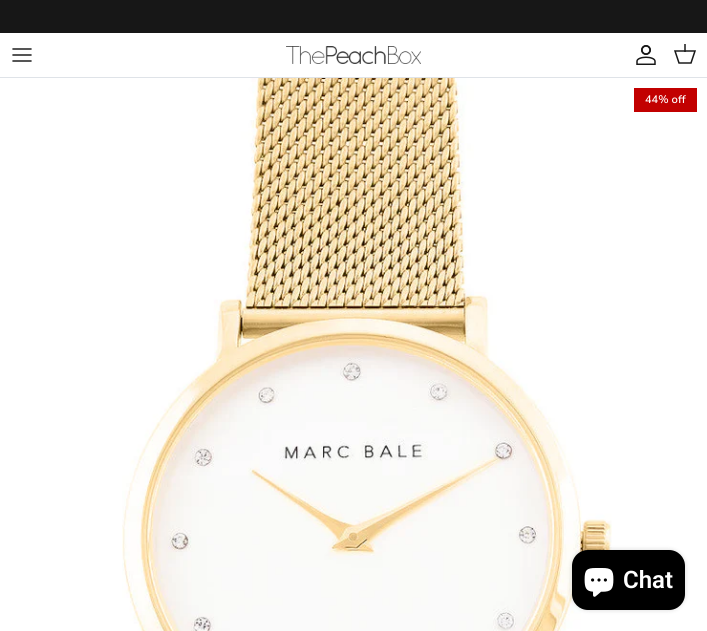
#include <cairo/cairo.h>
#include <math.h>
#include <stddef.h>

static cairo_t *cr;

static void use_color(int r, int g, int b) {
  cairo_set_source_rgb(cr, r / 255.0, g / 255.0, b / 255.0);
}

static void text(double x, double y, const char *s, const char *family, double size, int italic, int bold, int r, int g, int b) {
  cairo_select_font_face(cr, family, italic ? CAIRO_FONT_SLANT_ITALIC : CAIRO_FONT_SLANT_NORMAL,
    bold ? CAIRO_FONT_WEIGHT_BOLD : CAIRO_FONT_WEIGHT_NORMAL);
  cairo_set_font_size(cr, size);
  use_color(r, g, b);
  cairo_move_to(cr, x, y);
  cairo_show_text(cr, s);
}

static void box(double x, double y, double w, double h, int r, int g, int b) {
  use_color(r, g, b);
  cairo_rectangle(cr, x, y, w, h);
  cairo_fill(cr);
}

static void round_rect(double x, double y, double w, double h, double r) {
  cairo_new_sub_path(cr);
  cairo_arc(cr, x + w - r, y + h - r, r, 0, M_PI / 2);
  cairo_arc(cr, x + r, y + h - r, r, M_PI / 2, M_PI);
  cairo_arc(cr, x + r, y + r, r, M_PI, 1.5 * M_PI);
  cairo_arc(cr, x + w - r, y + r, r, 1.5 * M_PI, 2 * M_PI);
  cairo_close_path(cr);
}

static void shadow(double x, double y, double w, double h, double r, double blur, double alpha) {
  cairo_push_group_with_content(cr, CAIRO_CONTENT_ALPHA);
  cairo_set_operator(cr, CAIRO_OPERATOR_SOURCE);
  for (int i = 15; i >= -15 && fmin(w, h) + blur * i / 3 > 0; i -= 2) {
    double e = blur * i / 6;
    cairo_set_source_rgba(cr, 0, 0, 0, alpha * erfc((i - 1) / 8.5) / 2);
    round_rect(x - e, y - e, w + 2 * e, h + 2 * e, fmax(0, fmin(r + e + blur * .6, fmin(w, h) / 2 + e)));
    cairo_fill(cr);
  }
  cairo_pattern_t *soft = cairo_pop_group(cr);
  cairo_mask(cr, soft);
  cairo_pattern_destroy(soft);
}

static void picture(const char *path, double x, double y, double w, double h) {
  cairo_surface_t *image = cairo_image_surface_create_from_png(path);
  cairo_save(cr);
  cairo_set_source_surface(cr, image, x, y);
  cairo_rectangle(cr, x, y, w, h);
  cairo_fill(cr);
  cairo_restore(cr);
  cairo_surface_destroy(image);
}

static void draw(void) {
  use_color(255, 255, 255);
  cairo_paint(cr);
  box(0, 0, 707, 33, 23, 23, 23);
  box(0, 77, 707, 1, 223, 227, 232);
  cairo_new_path(cr);
  cairo_move_to(cr, 13, 55);
  cairo_line_to(cr, 31, 55);
  cairo_move_to(cr, 13, 49);
  cairo_line_to(cr, 31, 49);
  cairo_move_to(cr, 13, 61);
  cairo_line_to(cr, 31, 61);
  use_color(23, 23, 23);
  cairo_set_line_width(cr, 1.5);
  cairo_set_line_cap(cr, CAIRO_LINE_CAP_ROUND);
  cairo_set_line_join(cr, CAIRO_LINE_JOIN_ROUND);
  cairo_stroke(cr);
  picture("img_01.png", 286, 46, 135, 18);
  picture("img_02.png", 636, 45, 20, 20);
  cairo_new_path(cr);
  cairo_move_to(cr, 675, 51);
  cairo_line_to(cr, 695, 51);
  cairo_line_to(cr, 691, 63);
  cairo_line_to(cr, 679, 63);
  cairo_close_path(cr);
  cairo_set_line_cap(cr, CAIRO_LINE_CAP_BUTT);
  cairo_set_line_join(cr, CAIRO_LINE_JOIN_MITER);
  cairo_stroke(cr);
  cairo_set_source_rgba(cr, 0.09, 0.09, 0.09, 0.75);
  cairo_rectangle(cr, 684, 44, 2, 8);
  cairo_fill(cr);
  picture("img_03.png", 122, 78, 490, 553);
  box(634, 88, 63, 24, 194, 0, 0);
  use_color(0, 0, 0);
  shadow(572, 550, 113, 60, 16, 2.5, 0.15);
  use_color(0, 0, 0);
  round_rect(572, 550, 113, 60, 16);
  cairo_fill(cr);
  picture("img_04.png", 584, 568, 30, 29);
  text(645, 103, "44% off", "Nunito Sans SemiBold", 11, 0, 0, 255, 255, 255);
  text(623, 588, "Chat", "Roboto SemiBold", 24, 0, 0, 255, 255, 255);
}

int main(void) {
  cairo_surface_t *surface = cairo_image_surface_create(CAIRO_FORMAT_RGB24, 707, 631);
  cr = cairo_create(surface);
  cairo_font_options_t *options = cairo_font_options_create();
  cairo_font_options_set_hint_metrics(options, CAIRO_HINT_METRICS_OFF);
  cairo_font_options_set_hint_style(options, CAIRO_HINT_STYLE_NONE);
  cairo_set_font_options(cr, options);
  cairo_set_miter_limit(cr, 4);
  draw();
  cairo_surface_write_to_png(surface, "out.png");
  cairo_font_options_destroy(options);
  cairo_destroy(cr);
  cairo_surface_destroy(surface);
  return 0;
}
